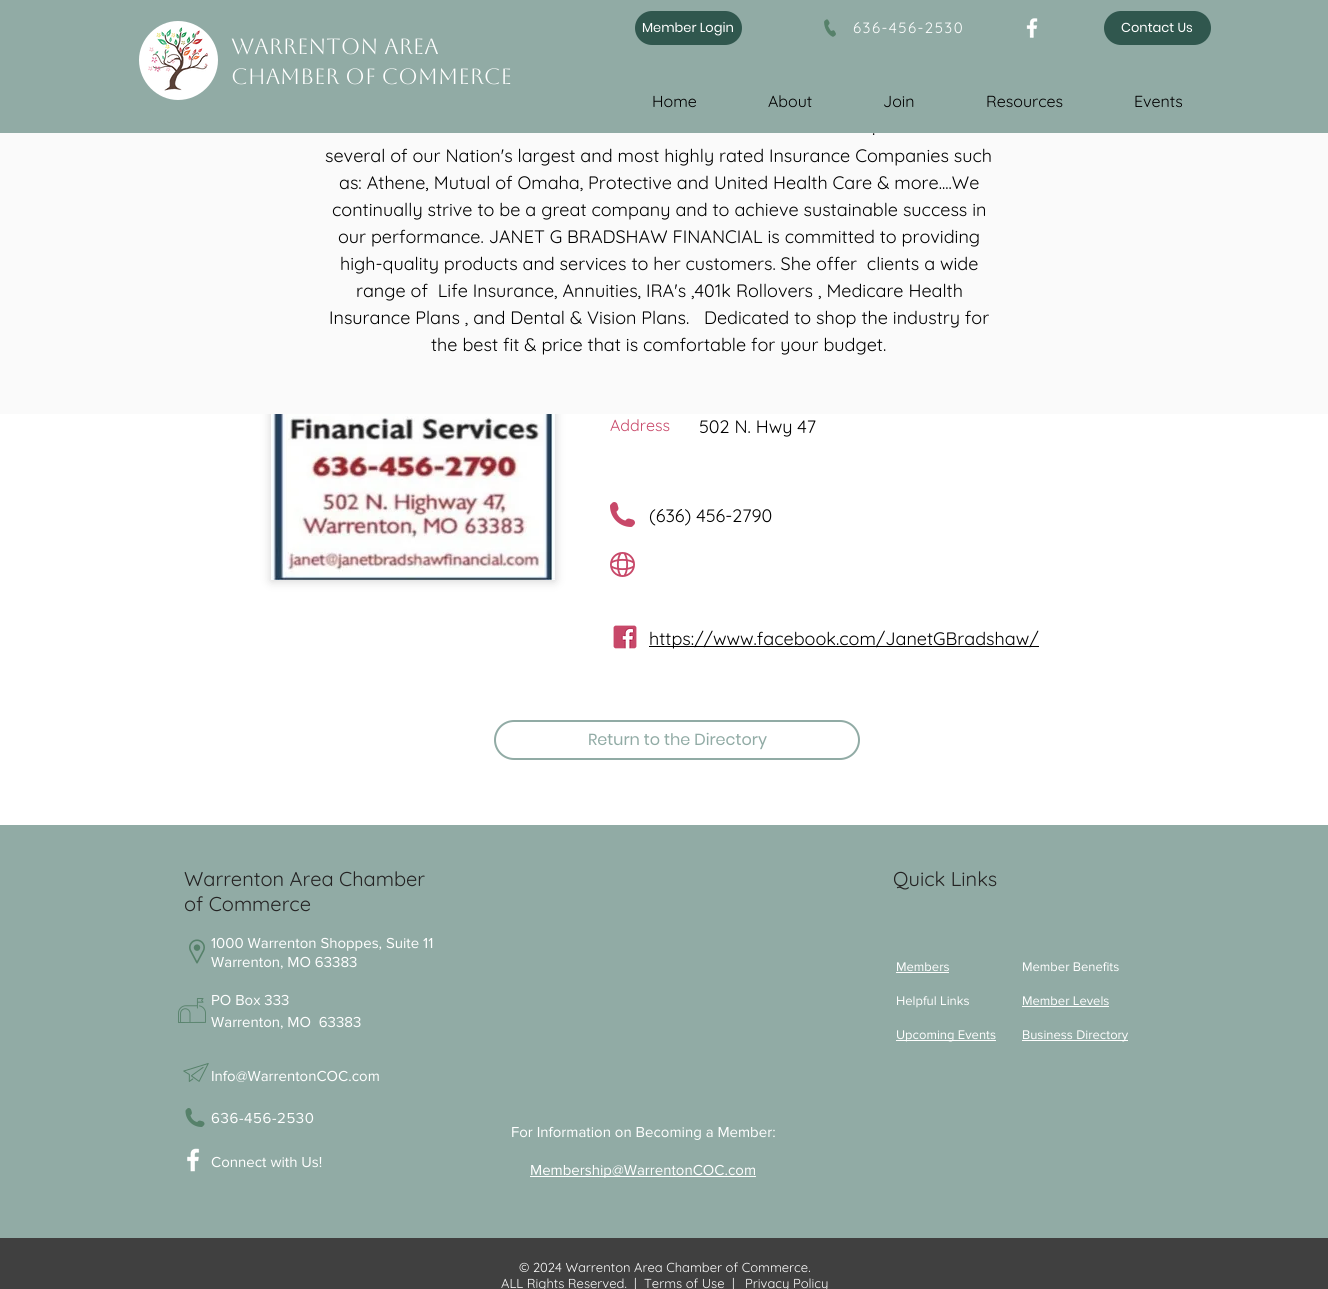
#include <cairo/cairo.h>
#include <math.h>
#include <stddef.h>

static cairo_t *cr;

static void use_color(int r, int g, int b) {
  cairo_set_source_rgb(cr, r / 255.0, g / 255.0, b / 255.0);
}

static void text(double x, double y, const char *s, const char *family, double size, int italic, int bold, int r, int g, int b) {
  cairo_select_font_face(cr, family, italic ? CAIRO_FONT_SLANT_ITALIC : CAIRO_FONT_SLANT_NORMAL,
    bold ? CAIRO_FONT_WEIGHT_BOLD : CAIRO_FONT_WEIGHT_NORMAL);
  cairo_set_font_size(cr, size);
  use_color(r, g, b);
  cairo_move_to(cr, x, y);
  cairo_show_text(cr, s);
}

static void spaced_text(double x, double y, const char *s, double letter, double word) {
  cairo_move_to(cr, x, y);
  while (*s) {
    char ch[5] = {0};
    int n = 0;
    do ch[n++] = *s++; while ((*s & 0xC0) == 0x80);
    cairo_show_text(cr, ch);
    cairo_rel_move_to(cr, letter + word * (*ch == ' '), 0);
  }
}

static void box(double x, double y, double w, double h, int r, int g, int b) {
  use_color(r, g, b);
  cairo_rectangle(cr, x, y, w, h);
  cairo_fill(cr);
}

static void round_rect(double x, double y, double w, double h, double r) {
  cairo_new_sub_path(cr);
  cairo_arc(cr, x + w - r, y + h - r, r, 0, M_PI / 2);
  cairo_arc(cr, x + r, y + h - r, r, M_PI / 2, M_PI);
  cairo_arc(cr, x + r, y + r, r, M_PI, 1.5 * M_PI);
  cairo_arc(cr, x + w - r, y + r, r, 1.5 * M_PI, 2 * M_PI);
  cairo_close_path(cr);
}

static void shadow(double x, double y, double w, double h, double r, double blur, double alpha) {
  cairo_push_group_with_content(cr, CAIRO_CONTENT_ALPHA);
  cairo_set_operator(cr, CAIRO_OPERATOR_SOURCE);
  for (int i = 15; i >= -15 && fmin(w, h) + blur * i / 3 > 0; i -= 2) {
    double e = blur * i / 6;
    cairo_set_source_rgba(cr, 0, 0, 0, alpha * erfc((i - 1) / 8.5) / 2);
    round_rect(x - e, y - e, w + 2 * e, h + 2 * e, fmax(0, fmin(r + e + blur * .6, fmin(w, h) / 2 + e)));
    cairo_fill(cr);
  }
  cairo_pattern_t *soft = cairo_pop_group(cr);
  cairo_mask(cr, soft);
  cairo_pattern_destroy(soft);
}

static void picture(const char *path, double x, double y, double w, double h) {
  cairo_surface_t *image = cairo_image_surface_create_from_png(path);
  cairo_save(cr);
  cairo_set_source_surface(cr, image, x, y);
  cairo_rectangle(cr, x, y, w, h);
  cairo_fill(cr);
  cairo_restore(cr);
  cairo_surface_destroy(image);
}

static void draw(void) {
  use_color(255, 255, 255);
  cairo_paint(cr);
  box(0, 0, 1328, 133, 145, 171, 165);
  use_color(255, 255, 255);
  cairo_new_path(cr);
  cairo_move_to(cr, 218, 60);
  cairo_curve_to(cr, 218, 82, 200, 100, 178, 100);
  cairo_curve_to(cr, 157, 100, 139, 82, 139, 60);
  cairo_curve_to(cr, 139, 39, 157, 21, 178, 21);
  cairo_curve_to(cr, 200, 21, 218, 39, 218, 60);
  cairo_close_path(cr);
  cairo_fill(cr);
  picture("img_01.png", 148, 27, 60, 64);
  use_color(48, 87, 78);
  round_rect(635, 11, 107, 34, 17);
  cairo_fill(cr);
  picture("img_02.png", 824, 19, 12, 18);
  picture("img_03.png", 1026, 18, 12, 20);
  round_rect(1104, 11, 107, 34, 17);
  cairo_fill(cr);
  use_color(0, 0, 0);
  shadow(271, 297, 284, 284, 0, 5, 0.18);
  box(0, 133, 1328, 281, 250, 250, 250);
  picture("img_04.png", 271, 414, 284, 166);
  picture("img_05.png", 610, 502, 25, 25);
  picture("img_06.png", 610, 552, 25, 25);
  picture("img_07.png", 613, 625, 24, 24);
  box(649, 646, 390, 1, 0, 0, 0);
  round_rect(495, 721, 364, 38, 19);
  use_color(145, 171, 165);
  cairo_stroke(cr);
  box(0, 825, 1328, 413, 145, 171, 165);
  picture("img_08.png", 189, 939, 16, 25);
  picture("img_09.png", 178, 998, 28, 25);
  box(896, 972, 53, 1, 255, 255, 255);
  box(896, 1040, 100, 1, 255, 255, 255);
  box(1022, 1006, 87, 1, 255, 255, 255);
  box(1022, 1040, 106, 1, 255, 255, 255);
  picture("img_10.png", 183, 1063, 26, 19);
  picture("img_11.png", 185, 1108, 20, 19);
  picture("img_12.png", 187, 1148, 13, 24);
  box(530, 1176, 226, 1, 255, 255, 255);
  box(0, 1238, 1328, 51, 64, 64, 64);
  text(231, 54, "Warrenton Area", "Aboreto", 22, 0, 0, 255, 255, 255);
  text(231, 84, "Chamber of Commerce", "Aboreto", 22, 0, 0, 255, 255, 255);
  text(642, 32, "Member Login", "Poppins", 13, 0, 0, 255, 255, 255);
  cairo_select_font_face(cr, "Quicksand", CAIRO_FONT_SLANT_NORMAL, CAIRO_FONT_WEIGHT_NORMAL);
  cairo_set_font_size(cr, 15);
  spaced_text(853, 33, "636-456-2530", 1.5, 0);
  text(1121, 32, "Contact Us", "Poppins", 13, 0, 0, 255, 255, 255);
  text(652, 107, "Home", "Quicksand", 16, 0, 0, 0, 0, 0);
  text(768, 107, "About", "Quicksand", 16, 0, 0, 0, 0, 0);
  text(883, 107, "Join", "Quicksand", 16, 0, 0, 0, 0, 0);
  text(986, 107, "Resources", "Quicksand", 16, 0, 0, 0, 0, 0);
  text(1134, 107, "Events", "Quicksand", 16, 0, 0, 0, 0, 0);
  text(872, 135, ".", "Quicksand", 18, 0, 0, 0, 0, 0);
  text(325, 162, "several of our Nation's largest and most highly rated Insurance Companies such", "Quicksand", 18, 0, 0, 0, 0, 0);
  text(339, 189, "as: Athene, Mutual of Omaha, Protective and United Health Care & more....We", "Quicksand", 18, 0, 0, 0, 0, 0);
  text(332, 216, "continually strive to be a great company and to achieve sustainable success in", "Quicksand", 18, 0, 0, 0, 0, 0);
  text(338, 243, "our performance. JANET G BRADSHAW FINANCIAL is committed to providing", "Quicksand", 18, 0, 0, 0, 0, 0);
  text(340, 270, "high-quality products and services to her customers. She offer  clients a wide", "Quicksand", 18, 0, 0, 0, 0, 0);
  text(356, 297, "range of  Life Insurance, Annuities, IRA's ,401k Rollovers , Medicare Health", "Quicksand", 18, 0, 0, 0, 0, 0);
  text(329, 324, "Insurance Plans , and Dental & Vision Plans.   Dedicated to shop the industry for", "Quicksand", 18, 0, 0, 0, 0, 0);
  text(431, 351, "the best fit & price that is comfortable for your budget.", "Quicksand", 18, 0, 0, 0, 0, 0);
  text(610, 431, "Address", "Quicksand", 16, 0, 0, 200, 72, 105);
  text(699, 433, "502 N. Hwy 47", "Quicksand", 18, 0, 0, 0, 0, 0);
  text(649, 522, "(636) 456-2790", "Quicksand", 18, 0, 0, 0, 0, 0);
  text(649, 645, "https://www.facebook.com/JanetGBradshaw/", "Quicksand", 18, 0, 0, 0, 0, 0);
  text(588, 745, "Return to the Directory", "Poppins", 16, 0, 0, 145, 171, 165);
  text(184, 886, "Warrenton Area Chamber", "Quicksand", 20, 0, 0, 36, 35, 35);
  text(184, 911, "of Commerce", "Quicksand", 20, 0, 0, 36, 35, 35);
  text(893, 886, "Quick Links", "Quicksand", 20, 0, 0, 36, 35, 35);
  text(211, 948, "1000 Warrenton Shoppes, Suite 11", "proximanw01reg", 15, 0, 0, 255, 255, 255);
  text(211, 967, "Warrenton, MO 63383", "proximanw01reg", 15, 0, 0, 255, 255, 255);
  text(211, 1005, "PO Box 333", "proximanw01reg", 15, 0, 0, 255, 255, 255);
  text(211, 1027, "Warrenton, MO  63383", "proximanw01reg", 15, 0, 0, 255, 255, 255);
  text(896, 971, "Members", "proximanw01reg", 13, 0, 0, 255, 255, 255);
  text(896, 1005, "Helpful Links", "proximanw01reg", 13, 0, 0, 255, 255, 255);
  text(896, 1039, "Upcoming Events", "proximanw01reg", 13, 0, 0, 255, 255, 255);
  text(1022, 971, "Member Benefits", "proximanw01reg", 13, 0, 0, 255, 255, 255);
  text(1022, 1005, "Member Levels", "proximanw01reg", 13, 0, 0, 255, 255, 255);
  text(1022, 1039, "Business Directory", "proximanw01reg", 13, 0, 0, 255, 255, 255);
  text(211, 1081, "Info@WarrentonCOC.com", "proximanw01reg", 15, 0, 0, 255, 255, 255);
  spaced_text(211, 1123, "636-456-2530", 0.6, 0);
  text(211, 1167, "Connect with Us!", "proximanw01reg", 15, 0, 0, 255, 255, 255);
  text(511, 1137, "For Information on Becoming a Member:", "proximanw01reg", 15, 0, 0, 255, 255, 255);
  text(530, 1175, "Membership@WarrentonCOC.com", "proximanw01reg", 15, 0, 0, 255, 255, 255);
  text(519, 1272, "© 2024 Warrenton Area Chamber of Commerce.", "Quicksand", 13, 0, 0, 255, 255, 255);
  text(501, 1288, "ALL Rights Reserved.  |", "Quicksand", 13, 0, 0, 255, 255, 255);
  text(644, 1288, "Terms of Use", "Quicksand", 13, 0, 0, 255, 255, 255);
  text(732, 1288, "|", "Quicksand", 13, 0, 0, 255, 255, 255);
  text(745, 1288, "Privacy Policy", "Quicksand", 13, 0, 0, 255, 255, 255);
}

int main(void) {
  cairo_surface_t *surface = cairo_image_surface_create(CAIRO_FORMAT_RGB24, 1328, 1289);
  cr = cairo_create(surface);
  cairo_font_options_t *options = cairo_font_options_create();
  cairo_font_options_set_hint_metrics(options, CAIRO_HINT_METRICS_OFF);
  cairo_font_options_set_hint_style(options, CAIRO_HINT_STYLE_NONE);
  cairo_set_font_options(cr, options);
  cairo_set_miter_limit(cr, 4);
  draw();
  cairo_surface_write_to_png(surface, "out.png");
  cairo_font_options_destroy(options);
  cairo_destroy(cr);
  cairo_surface_destroy(surface);
  return 0;
}
